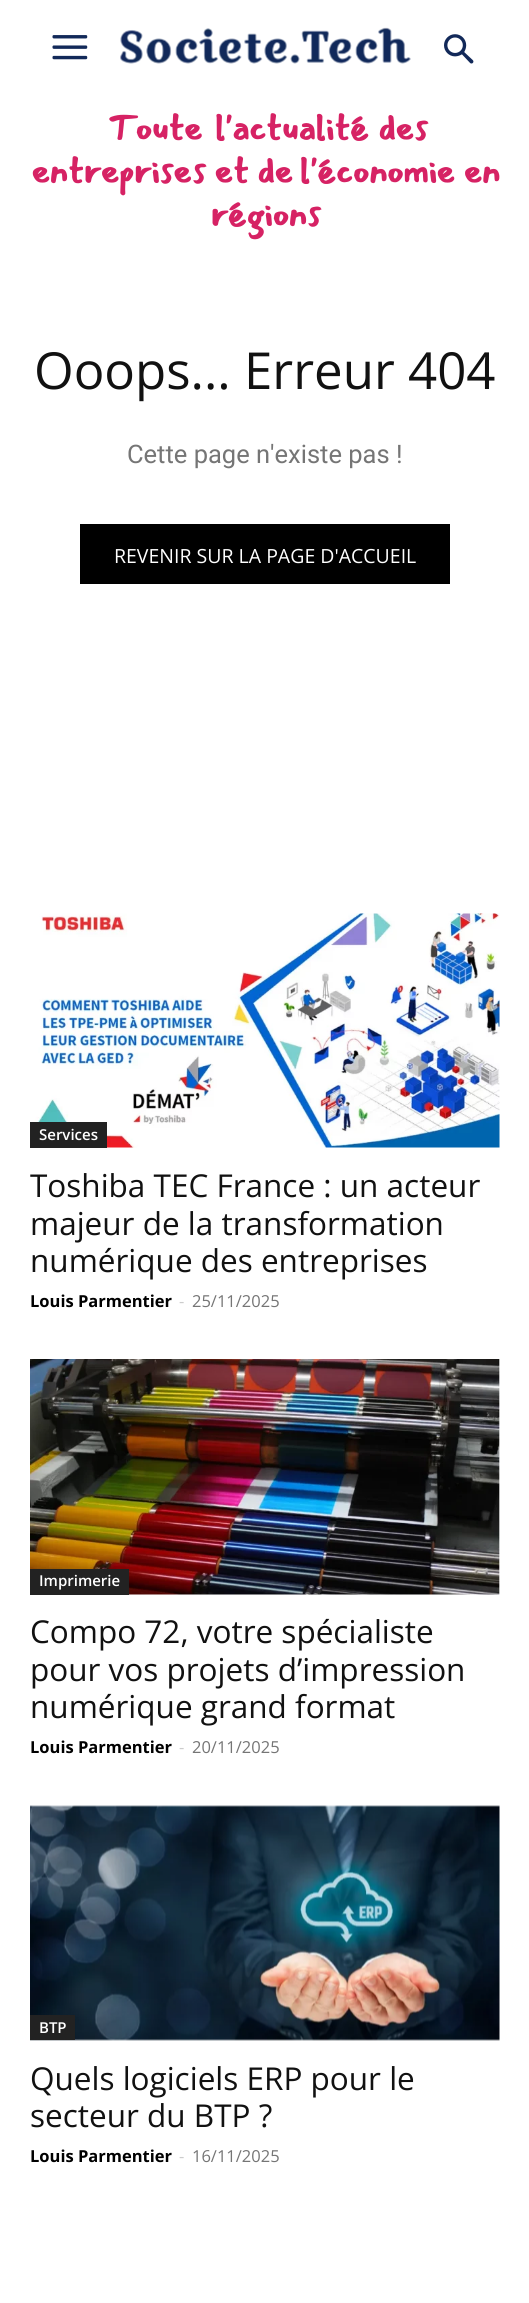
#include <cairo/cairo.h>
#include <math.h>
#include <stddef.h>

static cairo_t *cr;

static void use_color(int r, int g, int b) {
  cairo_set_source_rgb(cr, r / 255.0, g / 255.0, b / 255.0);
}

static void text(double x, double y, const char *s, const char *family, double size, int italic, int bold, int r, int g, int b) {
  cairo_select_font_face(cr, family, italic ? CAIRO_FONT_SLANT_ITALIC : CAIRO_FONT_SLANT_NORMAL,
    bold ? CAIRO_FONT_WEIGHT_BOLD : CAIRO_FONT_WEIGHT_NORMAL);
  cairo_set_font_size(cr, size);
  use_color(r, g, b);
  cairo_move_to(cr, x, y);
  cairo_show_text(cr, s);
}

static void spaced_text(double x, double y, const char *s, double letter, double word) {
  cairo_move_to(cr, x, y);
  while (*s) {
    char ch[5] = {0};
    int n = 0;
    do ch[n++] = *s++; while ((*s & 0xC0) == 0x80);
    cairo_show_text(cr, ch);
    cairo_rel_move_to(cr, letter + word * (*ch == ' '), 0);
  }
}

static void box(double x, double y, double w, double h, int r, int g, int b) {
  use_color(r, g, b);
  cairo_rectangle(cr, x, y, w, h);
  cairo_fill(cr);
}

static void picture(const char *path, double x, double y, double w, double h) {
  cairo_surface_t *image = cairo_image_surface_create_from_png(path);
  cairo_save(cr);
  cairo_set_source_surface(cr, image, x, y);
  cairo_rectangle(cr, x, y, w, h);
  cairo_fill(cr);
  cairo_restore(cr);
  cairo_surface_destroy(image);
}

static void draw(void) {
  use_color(255, 255, 255);
  cairo_paint(cr);
  picture("img_01.png", 52, 35, 36, 25);
  picture("img_02.png", 120, 27, 291, 37);
  picture("img_03.png", 444, 34, 30, 30);
  box(80, 524, 370, 60, 0, 0, 0);
  picture("img_04.png", 30, 913, 470, 235);
  box(30, 1122, 77, 26, 34, 34, 34);
  picture("img_05.png", 30, 1359, 470, 236);
  box(30, 1569, 99, 26, 34, 34, 34);
  picture("img_06.png", 30, 1805, 470, 236);
  box(30, 2015, 45, 25, 34, 34, 34);
  cairo_select_font_face(cr, "Mansalva", CAIRO_FONT_SLANT_NORMAL, CAIRO_FONT_WEIGHT_BOLD);
  cairo_set_font_size(cr, 36);
  use_color(214, 34, 100);
  spaced_text(107, 140, "Toute l'actualité", -0.75, 4);
  spaced_text(378, 140, "des", -0.75, 4);
  spaced_text(31, 183, "entreprises et de", -0.75, 0.5);
  spaced_text(299, 183, "l'économie en", -0.75, 0.5);
  spaced_text(210, 226, "régions", -0.75, 0);
  text(34, 389, "Ooops... Erreur 404", "Open Sans", 51, 0, 0, 17, 17, 17);
  text(127, 463, "Cette page n'existe pas !", "Roboto", 25.5, 0, 0, 117, 117, 117);
  text(114, 563, "REVENIR SUR LA PAGE D'ACCUEIL", "Open Sans", 19.5, 0, 0, 255, 255, 255);
  text(39, 1140, "Services", "Open Sans SemiBold", 15, 0, 0, 255, 255, 255);
  text(30, 1197, "Toshiba TEC France : un acteur", "Open Sans", 31.5, 0, 0, 17, 17, 17);
  text(30, 1235, "majeur de la transformation", "Open Sans", 31.5, 0, 0, 17, 17, 17);
  text(30, 1272, "numérique des entreprises", "Open Sans", 31.5, 0, 0, 17, 17, 17);
  text(30, 1307, "Louis Parmentier", "Open Sans", 16.5, 0, 1, 0, 0, 0);
  text(179, 1307, "-", "Open Sans", 16.5, 0, 0, 204, 204, 204);
  text(192, 1307, "25/11/2025", "Open Sans", 16.5, 0, 0, 117, 117, 117);
  text(39, 1586, "Imprimerie", "Open Sans SemiBold", 15, 0, 0, 255, 255, 255);
  text(30, 1643, "Compo 72, votre spécialiste", "Open Sans", 31.5, 0, 0, 17, 17, 17);
  text(30, 1681, "pour vos projets d’impression", "Open Sans", 31.5, 0, 0, 17, 17, 17);
  text(30, 1718, "numérique grand format", "Open Sans", 31.5, 0, 0, 17, 17, 17);
  text(30, 1753, "Louis Parmentier", "Open Sans", 16.5, 0, 1, 0, 0, 0);
  text(179, 1753, "-", "Open Sans", 16.5, 0, 0, 204, 204, 204);
  text(192, 1753, "20/11/2025", "Open Sans", 16.5, 0, 0, 117, 117, 117);
  text(39, 2033, "BTP", "Open Sans SemiBold", 15, 0, 0, 255, 255, 255);
  text(30, 2090, "Quels logiciels ERP pour le", "Open Sans", 31.5, 0, 0, 17, 17, 17);
  text(30, 2127, "secteur du BTP ?", "Open Sans", 31.5, 0, 0, 17, 17, 17);
  text(30, 2162, "Louis Parmentier", "Open Sans", 16.5, 0, 1, 0, 0, 0);
  text(179, 2162, "-", "Open Sans", 16.5, 0, 0, 204, 204, 204);
  text(192, 2162, "16/11/2025", "Open Sans", 16.5, 0, 0, 117, 117, 117);
}

int main(void) {
  cairo_surface_t *surface = cairo_image_surface_create(CAIRO_FORMAT_RGB24, 529, 2303);
  cr = cairo_create(surface);
  cairo_font_options_t *options = cairo_font_options_create();
  cairo_font_options_set_hint_metrics(options, CAIRO_HINT_METRICS_OFF);
  cairo_font_options_set_hint_style(options, CAIRO_HINT_STYLE_NONE);
  cairo_set_font_options(cr, options);
  cairo_set_miter_limit(cr, 4);
  draw();
  cairo_surface_write_to_png(surface, "out.png");
  cairo_font_options_destroy(options);
  cairo_destroy(cr);
  cairo_surface_destroy(surface);
  return 0;
}
